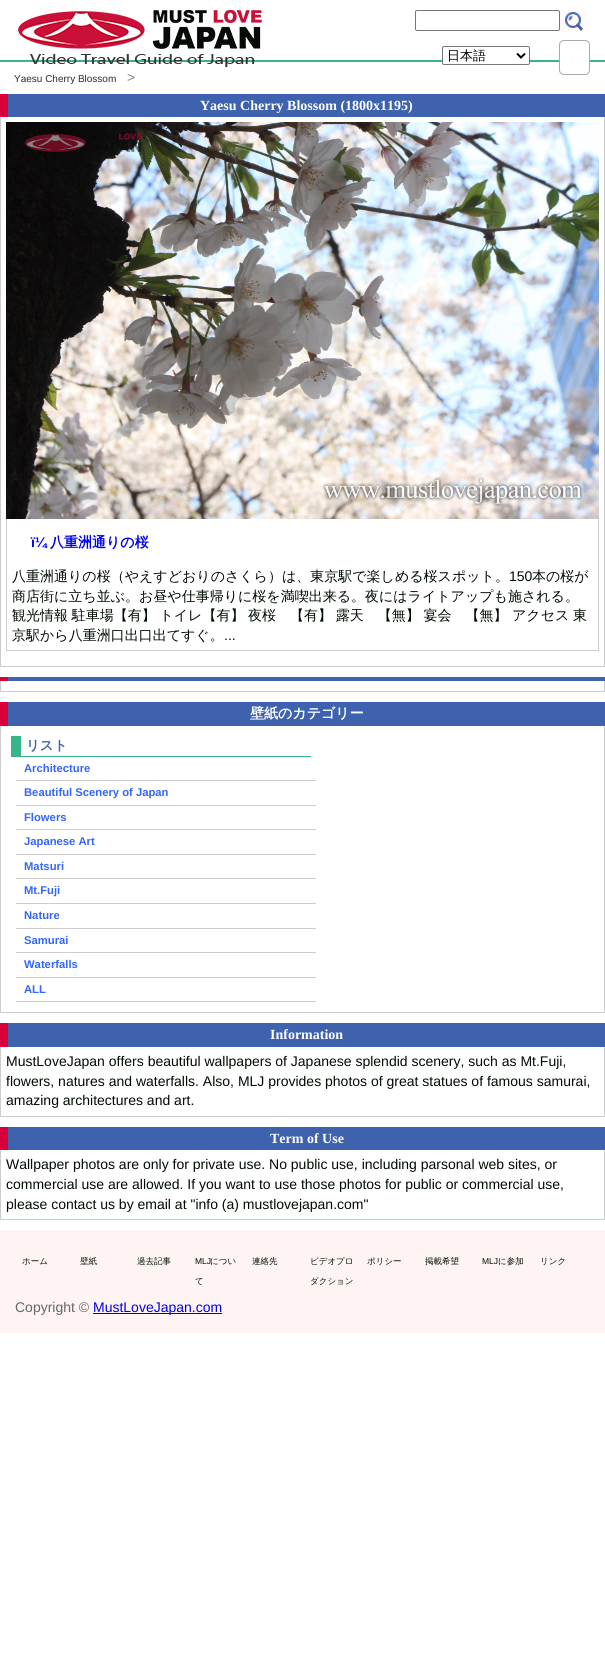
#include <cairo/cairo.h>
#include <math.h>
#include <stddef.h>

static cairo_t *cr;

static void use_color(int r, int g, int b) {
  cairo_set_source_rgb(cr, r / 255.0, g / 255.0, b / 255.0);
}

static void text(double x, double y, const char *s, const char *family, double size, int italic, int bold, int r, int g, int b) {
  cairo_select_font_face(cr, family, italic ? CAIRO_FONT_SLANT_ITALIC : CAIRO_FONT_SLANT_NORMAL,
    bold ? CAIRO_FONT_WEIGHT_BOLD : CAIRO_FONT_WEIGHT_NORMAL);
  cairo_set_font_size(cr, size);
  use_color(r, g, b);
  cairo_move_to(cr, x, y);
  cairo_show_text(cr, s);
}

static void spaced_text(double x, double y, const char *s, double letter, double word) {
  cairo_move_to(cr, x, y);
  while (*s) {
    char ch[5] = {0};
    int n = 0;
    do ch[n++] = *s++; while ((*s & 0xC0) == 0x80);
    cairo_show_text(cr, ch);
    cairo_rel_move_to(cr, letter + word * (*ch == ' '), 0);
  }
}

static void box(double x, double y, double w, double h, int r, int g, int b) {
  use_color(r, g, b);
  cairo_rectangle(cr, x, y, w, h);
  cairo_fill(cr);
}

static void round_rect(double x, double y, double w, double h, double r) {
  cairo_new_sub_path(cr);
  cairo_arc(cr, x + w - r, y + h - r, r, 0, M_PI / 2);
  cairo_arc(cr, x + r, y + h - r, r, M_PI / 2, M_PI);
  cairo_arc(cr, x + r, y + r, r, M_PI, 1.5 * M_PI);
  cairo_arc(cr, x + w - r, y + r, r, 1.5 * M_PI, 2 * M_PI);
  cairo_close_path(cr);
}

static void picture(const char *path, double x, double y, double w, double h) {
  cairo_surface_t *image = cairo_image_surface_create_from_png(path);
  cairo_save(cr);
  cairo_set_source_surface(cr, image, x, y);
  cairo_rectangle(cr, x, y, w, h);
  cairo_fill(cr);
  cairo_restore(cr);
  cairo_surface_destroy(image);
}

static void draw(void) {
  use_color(255, 255, 255);
  cairo_paint(cr);
  box(0, 60, 605, 2, 56, 180, 139);
  picture("img_01.png", 18, 10, 244, 57);
  round_rect(415.5, 10.5, 144, 20, 1.5);
  use_color(118, 118, 118);
  cairo_set_line_width(cr, 1);
  cairo_stroke(cr);
  picture("img_02.png", 560, 10, 25, 22);
  use_color(255, 255, 255);
  round_rect(442.5, 46.5, 87, 18, 1.5);
  cairo_fill_preserve(cr);
  use_color(118, 118, 118);
  cairo_stroke(cr);
  cairo_new_path(cr);
  cairo_move_to(cr, 517, 53.5);
  cairo_line_to(cr, 521, 57.5);
  cairo_line_to(cr, 525, 53.5);
  use_color(0, 0, 0);
  cairo_set_line_width(cr, 2);
  cairo_stroke(cr);
  use_color(255, 255, 255);
  round_rect(559.5, 40.5, 30, 34, 4.5);
  cairo_fill_preserve(cr);
  use_color(170, 170, 170);
  cairo_set_line_width(cr, 1);
  cairo_stroke(cr);
  box(8, 94, 597, 23, 62, 98, 173);
  box(0, 94, 8, 23, 215, 0, 58);
  box(604, 117, 1, 550, 204, 204, 204);
  box(0, 666, 605, 1, 204, 204, 204);
  box(0, 117, 1, 550, 204, 204, 204);
  picture("img_03.png", 6, 122, 593, 397);
  box(598, 519, 1, 132, 204, 204, 204);
  box(6, 650, 593, 1, 204, 204, 204);
  box(6, 519, 1, 132, 204, 204, 204);
  box(0, 677, 605, 4, 62, 98, 173);
  box(0, 677, 8, 4, 215, 0, 58);
  box(604, 681, 1, 11, 204, 204, 204);
  box(0, 691, 605, 1, 204, 204, 204);
  box(0, 681, 1, 11, 204, 204, 204);
  box(8, 702, 597, 24, 62, 98, 173);
  box(0, 702, 8, 24, 215, 0, 58);
  box(604, 726, 1, 287, 204, 204, 204);
  box(0, 1012, 605, 1, 204, 204, 204);
  box(0, 726, 1, 287, 204, 204, 204);
  box(21, 756, 290, 1, 56, 180, 139);
  box(11, 736, 10, 21, 56, 180, 139);
  box(16, 780, 300, 1, 204, 204, 204);
  box(16, 805, 300, 1, 204, 204, 204);
  box(16, 829, 300, 1, 204, 204, 204);
  box(16, 854, 300, 1, 204, 204, 204);
  box(16, 878, 300, 1, 204, 204, 204);
  box(16, 903, 300, 1, 204, 204, 204);
  box(16, 928, 300, 1, 204, 204, 204);
  box(16, 952, 300, 1, 204, 204, 204);
  box(16, 977, 300, 1, 204, 204, 204);
  box(16, 1001, 300, 1, 204, 204, 204);
  box(8, 1023, 597, 24, 62, 98, 173);
  box(0, 1023, 8, 24, 215, 0, 58);
  box(604, 1047, 1, 70, 204, 204, 204);
  box(0, 1116, 605, 1, 204, 204, 204);
  box(0, 1047, 1, 70, 204, 204, 204);
  box(8, 1127, 597, 23, 62, 98, 173);
  box(0, 1127, 8, 23, 215, 0, 58);
  box(604, 1150, 1, 70, 204, 204, 204);
  box(0, 1219, 605, 1, 204, 204, 204);
  box(0, 1150, 1, 70, 204, 204, 204);
  box(0, 1230, 605, 103, 254, 244, 244);
  box(93, 1313, 129, 1, 0, 0, 238);
  text(447, 60, "日本語", "WenQuanYi Zen Hei Medium", 13, 0, 0, 0, 0, 0);
  text(14, 82, "Yaesu Cherry Blossom", "Liberation Sans", 10, 0, 0, 46, 41, 48);
  text(127, 82, ">", "Liberation Sans", 14, 0, 0, 136, 136, 136);
  text(200, 110, "Yaesu Cherry Blossom (1800x1195)", "Liberation Serif", 14, 0, 1, 255, 255, 255);
  text(31, 547, "ï¼", "Liberation Sans", 14, 0, 1, 0, 0, 238);
  text(50, 547, "八重洲通りの桜", "WenQuanYi Zen Hei", 14, 0, 1, 0, 0, 238);
  text(12, 581, "八重洲通りの桜（やえすどおりのさくら）は、東京駅で楽しめる桜スポット。", "WenQuanYi Zen Hei Medium", 14, 0, 0, 0, 11, 0);
  text(509, 581, "150", "Liberation Sans", 14, 0, 0, 0, 11, 0);
  text(532, 581, "本の桜が", "WenQuanYi Zen Hei Medium", 14, 0, 0, 0, 11, 0);
  text(12, 601, "商店街に立ち並ぶ。お昼や仕事帰りに桜を満喫出来る。夜にはライトアップも施される。", "WenQuanYi Zen Hei Medium", 14, 0, 0, 0, 11, 0);
  spaced_text(12, 620, "観光情報 駐車場【有】 トイレ【有】 夜桜　【有】 露天　【無】 宴会　【無】", 0, -0.5);
  spaced_text(512, 620, "アクセス 東", 0, -0.5);
  text(12, 640, "京駅から八重洲口出口出てすぐ。", "WenQuanYi Zen Hei Medium", 14, 0, 0, 0, 11, 0);
  text(224, 640, "...", "Liberation Sans", 14, 0, 0, 0, 11, 0);
  text(250, 718, "壁紙のカテゴリー", "WenQuanYi Zen Hei", 14, 0, 1, 255, 255, 255);
  text(26, 750, "リスト", "WenQuanYi Zen Hei", 13.5, 0, 1, 62, 98, 173);
  text(24, 772, "Architecture", "Liberation Sans", 11.25, 0, 1, 51, 102, 255);
  text(24, 796, "Beautiful Scenery of Japan", "Liberation Sans", 11.25, 0, 1, 51, 102, 255);
  text(24, 821, "Flowers", "Liberation Sans", 11.25, 0, 1, 51, 102, 255);
  text(24, 845, "Japanese Art", "Liberation Sans", 11.25, 0, 1, 51, 102, 255);
  text(24, 870, "Matsuri", "Liberation Sans", 11.25, 0, 1, 51, 102, 255);
  text(24, 894, "Mt.Fuji", "Liberation Sans", 11.25, 0, 1, 51, 102, 255);
  text(24, 919, "Nature", "Liberation Sans", 11.25, 0, 1, 51, 102, 255);
  text(24, 944, "Samurai", "Liberation Sans", 11.25, 0, 1, 51, 102, 255);
  text(24, 968, "Waterfalls", "Liberation Sans", 11.25, 0, 1, 51, 102, 255);
  text(24, 993, "ALL", "Liberation Sans", 11.25, 0, 1, 51, 102, 255);
  text(270, 1039, "Information", "Liberation Serif", 14, 0, 1, 255, 255, 255);
  text(6, 1066, "MustLoveJapan offers beautiful wallpapers of Japanese splendid scenery, such as Mt.Fuji,", "Liberation Sans", 14, 0, 0, 0, 11, 0);
  text(6, 1086, "flowers, natures and waterfalls. Also, MLJ provides photos of great statues of famous samurai,", "Liberation Sans", 14, 0, 0, 0, 11, 0);
  text(6, 1105, "amazing architectures and art.", "Liberation Sans", 14, 0, 0, 0, 11, 0);
  text(270, 1143, "Term of Use", "Liberation Serif", 14, 0, 1, 255, 255, 255);
  text(6, 1169, "Wallpaper photos are only for private use. No public use, including parsonal web sites, or", "Liberation Sans", 14, 0, 0, 0, 11, 0);
  text(6, 1189, "commercial use are allowed. If you want to use those photos for public or commercial use,", "Liberation Sans", 14, 0, 0, 0, 11, 0);
  text(6, 1209, "please contact us by email at \"info (a) mustlovejapan.com\"", "Liberation Sans", 14, 0, 0, 0, 11, 0);
  text(22, 1264, "ホーム", "WenQuanYi Zen Hei Medium", 8.5, 0, 0, 0, 11, 0);
  text(80, 1264, "壁紙", "WenQuanYi Zen Hei Medium", 8.5, 0, 0, 0, 11, 0);
  text(137, 1264, "過去記事", "WenQuanYi Zen Hei Medium", 8.5, 0, 0, 0, 11, 0);
  text(195, 1264, "MLJ", "Liberation Sans", 8.5, 0, 0, 0, 11, 0);
  text(210, 1264, "につい", "WenQuanYi Zen Hei Medium", 8.5, 0, 0, 0, 11, 0);
  text(195, 1284, "て", "WenQuanYi Zen Hei Medium", 8.5, 0, 0, 0, 11, 0);
  text(252, 1264, "連絡先", "WenQuanYi Zen Hei Medium", 8.5, 0, 0, 0, 11, 0);
  text(310, 1264, "ビデオプロ", "WenQuanYi Zen Hei Medium", 8.5, 0, 0, 0, 11, 0);
  text(310, 1284, "ダクション", "WenQuanYi Zen Hei Medium", 8.5, 0, 0, 0, 11, 0);
  text(367, 1264, "ポリシー", "WenQuanYi Zen Hei Medium", 8.5, 0, 0, 0, 11, 0);
  text(425, 1264, "掲載希望", "WenQuanYi Zen Hei Medium", 8.5, 0, 0, 0, 11, 0);
  text(482, 1264, "MLJ", "Liberation Sans", 8.5, 0, 0, 0, 11, 0);
  text(498, 1264, "に参加", "WenQuanYi Zen Hei Medium", 8.5, 0, 0, 0, 11, 0);
  text(540, 1264, "リンク", "WenQuanYi Zen Hei Medium", 8.5, 0, 0, 0, 11, 0);
  text(15, 1312, "Copyright ©", "Liberation Sans", 14, 0, 0, 102, 102, 102);
  text(93, 1312, "MustLoveJapan.com", "Liberation Sans", 14, 0, 0, 0, 0, 238);
}

int main(void) {
  cairo_surface_t *surface = cairo_image_surface_create(CAIRO_FORMAT_RGB24, 605, 1659);
  cr = cairo_create(surface);
  cairo_font_options_t *options = cairo_font_options_create();
  cairo_font_options_set_hint_metrics(options, CAIRO_HINT_METRICS_OFF);
  cairo_font_options_set_hint_style(options, CAIRO_HINT_STYLE_NONE);
  cairo_set_font_options(cr, options);
  cairo_set_miter_limit(cr, 4);
  draw();
  cairo_surface_write_to_png(surface, "out.png");
  cairo_font_options_destroy(options);
  cairo_destroy(cr);
  cairo_surface_destroy(surface);
  return 0;
}
